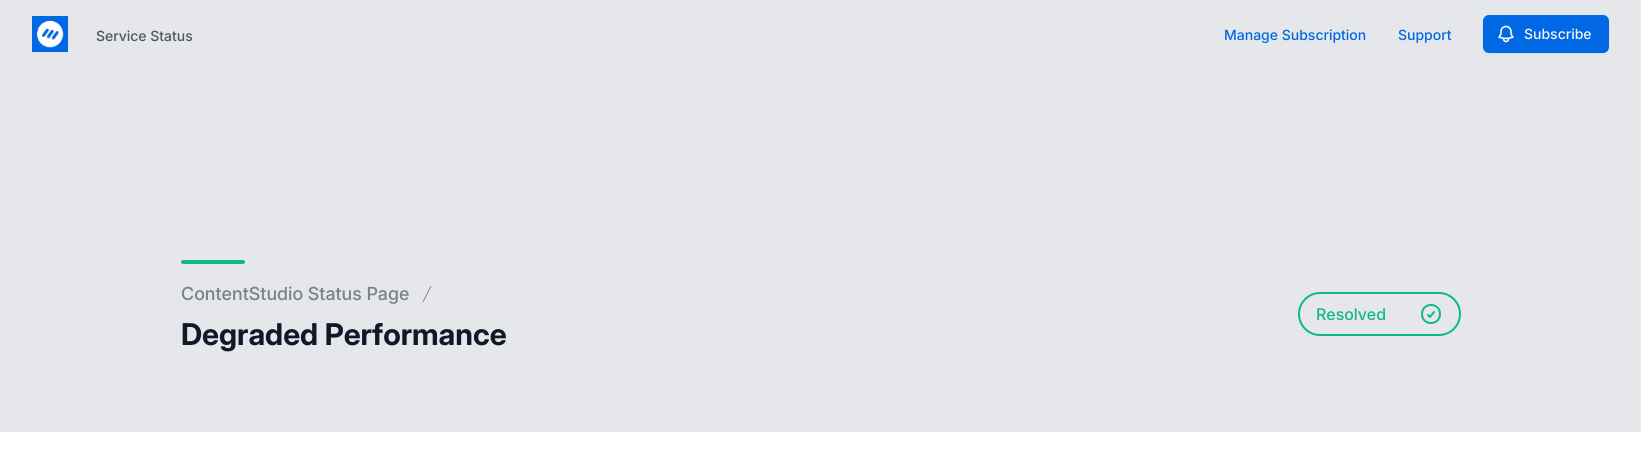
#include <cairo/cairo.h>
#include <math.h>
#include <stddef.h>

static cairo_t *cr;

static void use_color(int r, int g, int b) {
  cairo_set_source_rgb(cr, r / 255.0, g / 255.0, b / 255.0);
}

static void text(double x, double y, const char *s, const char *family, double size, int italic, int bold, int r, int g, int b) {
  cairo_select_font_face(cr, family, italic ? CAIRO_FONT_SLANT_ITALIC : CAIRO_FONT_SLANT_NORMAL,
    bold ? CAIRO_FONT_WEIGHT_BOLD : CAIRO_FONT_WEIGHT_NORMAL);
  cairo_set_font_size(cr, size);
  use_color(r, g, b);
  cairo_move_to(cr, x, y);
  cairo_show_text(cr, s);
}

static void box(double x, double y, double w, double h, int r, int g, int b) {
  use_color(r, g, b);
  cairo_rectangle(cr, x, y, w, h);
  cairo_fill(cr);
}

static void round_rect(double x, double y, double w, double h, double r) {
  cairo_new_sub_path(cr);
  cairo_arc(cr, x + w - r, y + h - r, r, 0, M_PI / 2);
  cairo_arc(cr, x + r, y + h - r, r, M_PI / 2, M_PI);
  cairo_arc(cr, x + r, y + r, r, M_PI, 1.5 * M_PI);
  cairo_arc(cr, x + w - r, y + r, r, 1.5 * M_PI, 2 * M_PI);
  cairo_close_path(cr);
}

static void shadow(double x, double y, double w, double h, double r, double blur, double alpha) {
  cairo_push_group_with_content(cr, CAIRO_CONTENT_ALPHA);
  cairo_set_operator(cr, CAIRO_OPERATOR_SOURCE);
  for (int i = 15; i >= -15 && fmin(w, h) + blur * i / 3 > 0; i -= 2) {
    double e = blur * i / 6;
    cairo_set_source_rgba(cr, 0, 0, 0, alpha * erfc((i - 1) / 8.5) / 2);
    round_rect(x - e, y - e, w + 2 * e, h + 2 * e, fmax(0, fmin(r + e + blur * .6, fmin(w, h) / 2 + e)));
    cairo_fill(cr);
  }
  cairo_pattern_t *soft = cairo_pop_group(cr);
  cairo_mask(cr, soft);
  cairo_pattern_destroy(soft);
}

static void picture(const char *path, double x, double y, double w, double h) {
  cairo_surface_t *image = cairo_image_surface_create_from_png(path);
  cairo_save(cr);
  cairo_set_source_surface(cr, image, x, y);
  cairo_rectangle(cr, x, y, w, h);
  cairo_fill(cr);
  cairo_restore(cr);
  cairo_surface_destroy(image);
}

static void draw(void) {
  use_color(255, 255, 255);
  cairo_paint(cr);
  box(0, 0, 1641, 432, 229, 231, 235);
  picture("img_01.png", 32, 16, 36, 36);
  use_color(0, 0, 0);
  shadow(1483, 16, 126, 38, 6, 1, 0.05);
  use_color(0, 104, 229);
  round_rect(1483, 15, 126, 38, 6);
  cairo_fill(cr);
  picture("img_02.png", 1498, 25, 16, 18);
  use_color(16, 185, 129);
  round_rect(181, 260, 64, 4, 2);
  cairo_fill(cr);
  use_color(123, 128, 137);
  cairo_new_path(cr);
  cairo_move_to(cr, 422.5, 302);
  cairo_line_to(cr, 430.5, 286);
  cairo_line_to(cr, 431.5, 286);
  cairo_line_to(cr, 423.5, 302);
  cairo_close_path(cr);
  cairo_fill(cr);
  round_rect(1299, 293, 161, 42, 21);
  use_color(16, 185, 129);
  cairo_stroke(cr);
  cairo_new_path(cr);
  cairo_move_to(cr, 1428, 315);
  cairo_line_to(cr, 1430, 317);
  cairo_line_to(cr, 1434, 312);
  cairo_move_to(cr, 1440, 314);
  cairo_curve_to(cr, 1440, 326, 1422, 326, 1422, 314);
  cairo_curve_to(cr, 1422, 302, 1440, 302, 1440, 314);
  cairo_close_path(cr);
  cairo_set_line_cap(cr, CAIRO_LINE_CAP_ROUND);
  cairo_set_line_join(cr, CAIRO_LINE_JOIN_ROUND);
  cairo_stroke(cr);
  text(96, 41, "Service Status", "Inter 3 Medium", 14, 0, 0, 81, 86, 98);
  text(1224, 40, "Manage Subscription", "Inter 3 Medium", 14, 0, 0, 0, 104, 229);
  text(1398, 40, "Support", "Inter 3 Medium", 14, 0, 0, 0, 104, 229);
  text(1524, 39, "Subscribe", "Inter 3 Medium", 14, 0, 0, 243, 244, 246);
  text(181, 300, "ContentStudio Status Page", "Inter Medium", 18, 0, 0, 123, 128, 137);
  text(181, 345, "Degraded Performance", "Inter", 30, 0, 1, 17, 24, 39);
  text(1316, 320, "Resolved", "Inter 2 Medium", 16, 0, 0, 16, 185, 129);
}

int main(void) {
  cairo_surface_t *surface = cairo_image_surface_create(CAIRO_FORMAT_RGB24, 1641, 464);
  cr = cairo_create(surface);
  cairo_font_options_t *options = cairo_font_options_create();
  cairo_font_options_set_hint_metrics(options, CAIRO_HINT_METRICS_OFF);
  cairo_font_options_set_hint_style(options, CAIRO_HINT_STYLE_NONE);
  cairo_set_font_options(cr, options);
  cairo_set_miter_limit(cr, 4);
  draw();
  cairo_surface_write_to_png(surface, "out.png");
  cairo_font_options_destroy(options);
  cairo_destroy(cr);
  cairo_surface_destroy(surface);
  return 0;
}
